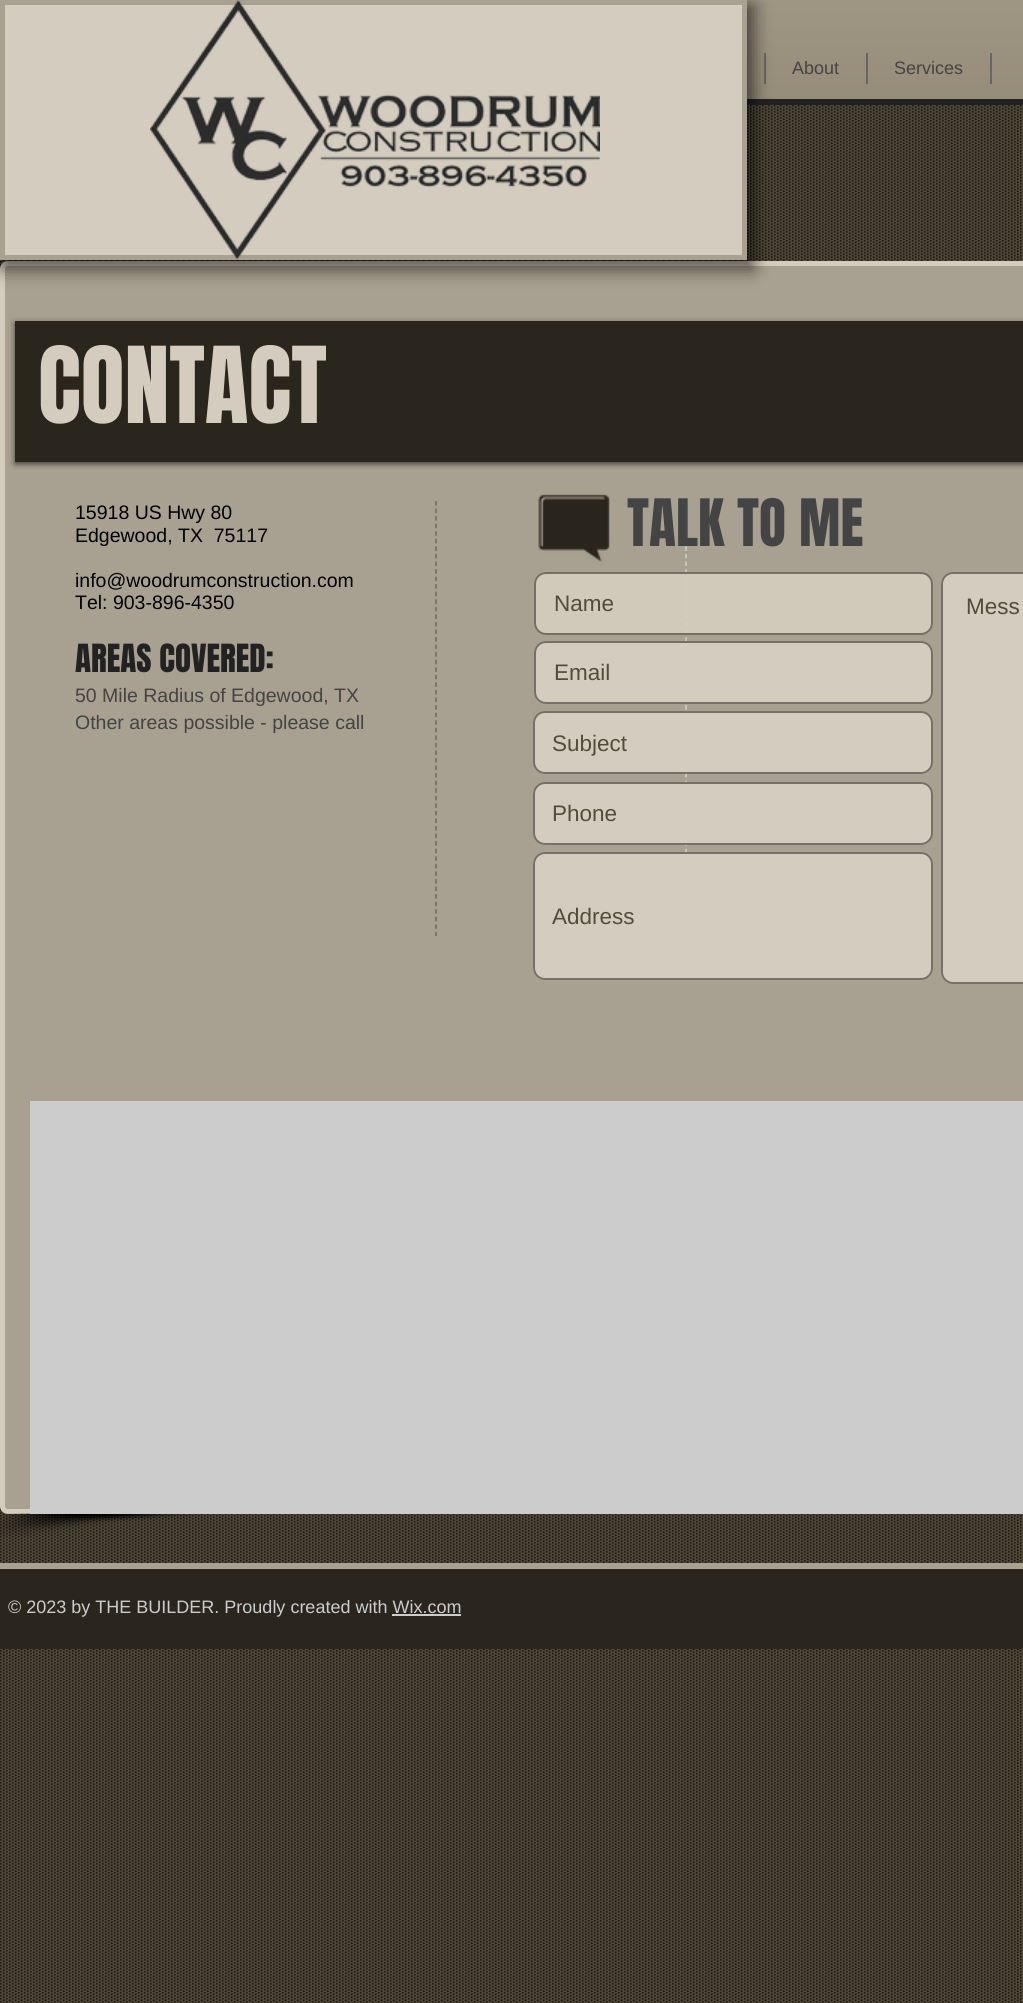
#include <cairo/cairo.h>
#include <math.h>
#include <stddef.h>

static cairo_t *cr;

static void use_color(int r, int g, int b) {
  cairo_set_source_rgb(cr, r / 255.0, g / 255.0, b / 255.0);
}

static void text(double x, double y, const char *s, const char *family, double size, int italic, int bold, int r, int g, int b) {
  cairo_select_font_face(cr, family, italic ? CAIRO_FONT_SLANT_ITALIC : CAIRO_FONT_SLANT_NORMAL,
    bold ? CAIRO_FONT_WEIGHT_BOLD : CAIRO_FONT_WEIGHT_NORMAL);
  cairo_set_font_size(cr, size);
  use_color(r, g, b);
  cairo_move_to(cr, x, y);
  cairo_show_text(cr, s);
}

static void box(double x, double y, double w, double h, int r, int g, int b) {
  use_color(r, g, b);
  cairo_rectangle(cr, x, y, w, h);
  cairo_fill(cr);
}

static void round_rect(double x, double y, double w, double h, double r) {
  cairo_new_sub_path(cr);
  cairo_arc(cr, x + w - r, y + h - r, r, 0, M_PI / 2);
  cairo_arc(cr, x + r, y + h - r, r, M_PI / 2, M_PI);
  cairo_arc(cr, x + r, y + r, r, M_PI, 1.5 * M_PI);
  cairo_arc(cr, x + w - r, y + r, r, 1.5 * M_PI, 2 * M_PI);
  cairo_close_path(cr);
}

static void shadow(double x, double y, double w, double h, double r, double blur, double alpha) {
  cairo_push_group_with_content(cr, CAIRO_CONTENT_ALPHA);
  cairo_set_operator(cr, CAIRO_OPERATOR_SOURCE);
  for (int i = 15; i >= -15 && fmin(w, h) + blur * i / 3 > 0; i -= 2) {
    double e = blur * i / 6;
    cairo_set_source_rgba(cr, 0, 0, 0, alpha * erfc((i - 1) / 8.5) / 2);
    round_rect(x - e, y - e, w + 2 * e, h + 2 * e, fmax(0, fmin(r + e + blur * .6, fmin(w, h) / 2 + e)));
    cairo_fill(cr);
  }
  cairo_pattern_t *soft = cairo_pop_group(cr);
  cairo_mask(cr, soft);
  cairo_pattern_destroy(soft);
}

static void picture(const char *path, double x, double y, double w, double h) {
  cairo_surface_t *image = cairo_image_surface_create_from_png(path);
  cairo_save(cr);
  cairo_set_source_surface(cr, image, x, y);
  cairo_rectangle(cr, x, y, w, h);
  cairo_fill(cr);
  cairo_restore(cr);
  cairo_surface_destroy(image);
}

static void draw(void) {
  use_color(83, 75, 59);
  cairo_paint(cr);
  box(747, 0, 276, 99, 125, 113, 89);
  box(747, 99, 276, 6, 34, 34, 34);
  picture("img_02.png", 747, 0, 276, 99);
  box(764, 53, 2, 31, 102, 102, 102);
  picture("img_05.png", 0, 105, 1023, 1898);
  use_color(168, 160, 144);
  round_rect(2.5, 263.5, 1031, 1248, 5.5);
  cairo_fill_preserve(cr);
  use_color(212, 205, 191);
  cairo_set_line_width(cr, 5);
  cairo_stroke(cr);
  use_color(0, 0, 0);
  shadow(3, 6, 750, 263, 0, 9, 0.6);
  use_color(212, 205, 191);
  cairo_rectangle(cr, 2.5, 2.5, 742, 255);
  cairo_fill_preserve(cr);
  use_color(168, 160, 144);
  cairo_stroke(cr);
  picture("img_01.png", 150, 0, 450, 260);
  box(866, 53, 2, 31, 102, 102, 102);
  box(990, 53, 2, 31, 102, 102, 102);
  picture("img_03.png", 0, 1513, 202, 24);
  use_color(0, 0, 0);
  shadow(15, 323, 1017, 141, 0, 3, 0.6);
  box(15, 321, 1008, 141, 42, 38, 30);
  picture("img_04.png", 538, 494, 72, 68);
  cairo_new_path(cr);
  cairo_move_to(cr, 686, 501);
  cairo_line_to(cr, 686, 936);
  use_color(212, 208, 200);
  cairo_set_line_width(cr, 1.5);
  cairo_set_dash(cr, (double[]){4.5, 3.06}, 2, 0);
  cairo_stroke(cr);
  cairo_new_path(cr);
  cairo_move_to(cr, 436, 501);
  cairo_line_to(cr, 436, 936);
  use_color(109, 104, 94);
  cairo_stroke(cr);
  cairo_set_source_rgba(cr, 0.831, 0.804, 0.749, 0.92);
  round_rect(534, 572, 399, 63, 12);
  cairo_fill(cr);
  round_rect(535, 573, 397, 61, 11);
  cairo_set_source_rgba(cr, 0.165, 0.149, 0.118, 0.55);
  cairo_set_line_width(cr, 2);
  cairo_set_dash(cr, NULL, 0, 0);
  cairo_stroke(cr);
  use_color(212, 205, 191);
  round_rect(941, 572, 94, 412, 12);
  cairo_fill(cr);
  round_rect(942, 573, 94, 410, 11);
  cairo_set_source_rgba(cr, 0.165, 0.149, 0.118, 0.55);
  cairo_stroke(cr);
  use_color(212, 205, 191);
  round_rect(534, 641, 399, 63, 12);
  cairo_fill(cr);
  round_rect(535, 642, 397, 61, 11);
  cairo_set_source_rgba(cr, 0.165, 0.149, 0.118, 0.55);
  cairo_stroke(cr);
  use_color(212, 205, 191);
  round_rect(533, 711, 400, 63, 12);
  cairo_fill(cr);
  round_rect(534, 712, 398, 61, 11);
  cairo_set_source_rgba(cr, 0.165, 0.149, 0.118, 0.55);
  cairo_stroke(cr);
  use_color(212, 205, 191);
  round_rect(533, 782, 400, 63, 12);
  cairo_fill(cr);
  round_rect(534, 783, 398, 61, 11);
  cairo_set_source_rgba(cr, 0.165, 0.149, 0.118, 0.55);
  cairo_stroke(cr);
  use_color(212, 205, 191);
  round_rect(533, 852, 400, 128, 12);
  cairo_fill(cr);
  round_rect(534, 853, 398, 126, 11);
  cairo_set_source_rgba(cr, 0.165, 0.149, 0.118, 0.55);
  cairo_stroke(cr);
  box(30, 1101, 993, 413, 204, 204, 204);
  box(0, 1569, 1023, 80, 42, 38, 30);
  box(0, 1563, 1023, 6, 168, 160, 144);
  box(392, 1614, 69, 2, 204, 204, 204);
  text(792, 74, "About", "Liberation Sans", 18, 0, 0, 68, 68, 68);
  text(894, 74, "Services", "Liberation Sans", 18, 0, 0, 68, 68, 68);
  text(38, 423, "CONTACT", "Anton", 90, 0, 0, 212, 205, 191);
  text(627, 546, "TALK TO ME", "Anton", 55.5, 0, 0, 68, 68, 68);
  text(75, 519, "15918 US Hwy 80", "Liberation Sans", 19.5, 0, 0, 0, 0, 0);
  text(75, 542, "Edgewood, TX  75117", "Liberation Sans", 19.5, 0, 0, 0, 0, 0);
  text(75, 587, "info@woodrumconstruction.com", "Liberation Sans", 19.5, 0, 0, 0, 0, 0);
  text(75, 609, "Tel: 903-896-4350", "Liberation Sans", 19.5, 0, 0, 0, 0, 0);
  text(75, 672, "AREAS COVERED:", "Anton", 33, 0, 0, 34, 34, 34);
  text(75, 702, "50 Mile Radius of Edgewood, TX", "Liberation Sans", 19.5, 0, 0, 68, 68, 68);
  text(75, 729, "Other areas possible - please call", "Liberation Sans", 19.5, 0, 0, 68, 68, 68);
  text(554, 611, "Name", "Liberation Sans", 22.5, 0, 0, 83, 75, 59);
  text(966, 614, "Mess", "Liberation Sans", 22.5, 0, 0, 83, 75, 59);
  text(554, 680, "Email", "Liberation Sans", 22.5, 0, 0, 83, 75, 59);
  text(552, 751, "Subject", "Liberation Sans", 22.5, 0, 0, 83, 75, 59);
  text(552, 821, "Phone", "Liberation Sans", 22.5, 0, 0, 83, 75, 59);
  text(552, 924, "Address", "Liberation Sans", 22.5, 0, 0, 83, 75, 59);
  text(8, 1613, "© 2023 by THE BUILDER. Proudly created with Wix.com", "Liberation Sans", 18, 0, 0, 204, 204, 204);
}

int main(void) {
  cairo_surface_t *surface = cairo_image_surface_create(CAIRO_FORMAT_RGB24, 1023, 2003);
  cr = cairo_create(surface);
  cairo_font_options_t *options = cairo_font_options_create();
  cairo_font_options_set_hint_metrics(options, CAIRO_HINT_METRICS_OFF);
  cairo_font_options_set_hint_style(options, CAIRO_HINT_STYLE_NONE);
  cairo_set_font_options(cr, options);
  cairo_set_miter_limit(cr, 4);
  draw();
  cairo_surface_write_to_png(surface, "out.png");
  cairo_font_options_destroy(options);
  cairo_destroy(cr);
  cairo_surface_destroy(surface);
  return 0;
}
